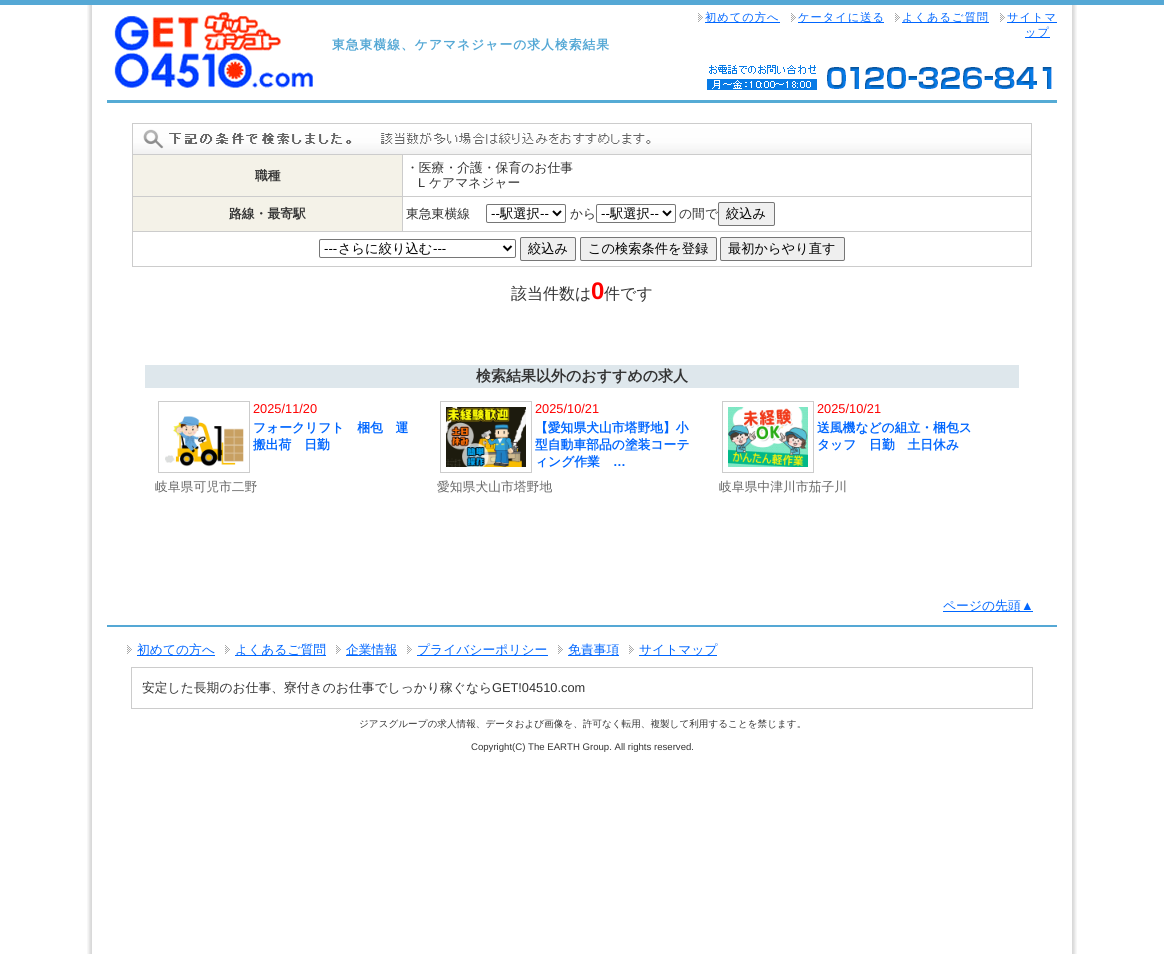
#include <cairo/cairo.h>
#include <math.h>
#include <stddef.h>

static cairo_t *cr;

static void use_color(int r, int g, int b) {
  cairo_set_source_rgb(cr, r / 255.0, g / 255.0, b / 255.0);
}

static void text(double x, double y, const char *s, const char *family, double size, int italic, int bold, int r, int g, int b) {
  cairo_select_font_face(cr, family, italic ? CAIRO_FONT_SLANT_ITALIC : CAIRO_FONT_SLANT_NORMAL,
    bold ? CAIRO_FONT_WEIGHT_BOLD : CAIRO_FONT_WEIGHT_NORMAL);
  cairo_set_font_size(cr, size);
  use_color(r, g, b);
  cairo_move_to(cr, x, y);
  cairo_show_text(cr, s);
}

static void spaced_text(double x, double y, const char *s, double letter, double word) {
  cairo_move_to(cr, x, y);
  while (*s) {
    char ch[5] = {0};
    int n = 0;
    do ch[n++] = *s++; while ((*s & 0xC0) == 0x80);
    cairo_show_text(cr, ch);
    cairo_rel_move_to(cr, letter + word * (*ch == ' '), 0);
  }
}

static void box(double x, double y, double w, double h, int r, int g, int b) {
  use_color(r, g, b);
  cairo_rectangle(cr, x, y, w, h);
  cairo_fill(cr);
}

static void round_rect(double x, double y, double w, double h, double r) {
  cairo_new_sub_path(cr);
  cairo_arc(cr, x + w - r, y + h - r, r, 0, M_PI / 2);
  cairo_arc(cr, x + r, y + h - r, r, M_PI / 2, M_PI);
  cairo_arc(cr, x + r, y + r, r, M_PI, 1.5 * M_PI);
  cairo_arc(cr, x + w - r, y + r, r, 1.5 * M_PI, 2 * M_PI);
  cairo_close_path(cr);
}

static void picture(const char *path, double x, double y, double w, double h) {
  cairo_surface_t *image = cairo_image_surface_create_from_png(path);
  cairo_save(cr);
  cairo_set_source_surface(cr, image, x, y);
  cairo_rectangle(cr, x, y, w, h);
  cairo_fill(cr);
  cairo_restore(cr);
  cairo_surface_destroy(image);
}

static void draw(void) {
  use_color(255, 255, 255);
  cairo_paint(cr);
  picture("img_01.png", 87, 5, 990, 949);
  box(0, 0, 1164, 5, 85, 168, 213);
  picture("img_02.png", 707, 65, 345, 25);
  box(107, 100, 950, 3, 85, 171, 213);
  picture("img_03.png", 114, 12, 199, 76);
  picture("img_04.png", 698, 13, 5, 9);
  box(705, 22, 75, 1, 0, 102, 255);
  picture("img_04.png", 791, 13, 5, 9);
  box(798, 22, 86, 1, 0, 102, 255);
  picture("img_04.png", 895, 13, 5, 9);
  box(902, 22, 87, 1, 0, 102, 255);
  picture("img_04.png", 1000, 13, 5, 9);
  box(1007, 22, 50, 1, 0, 102, 255);
  box(1025, 37, 25, 1, 0, 102, 255);
  picture("img_05.png", 133, 124, 898, 30);
  box(132, 123, 900, 1, 204, 204, 204);
  box(402, 154, 630, 1, 204, 204, 204);
  box(402, 196, 630, 1, 204, 204, 204);
  box(132, 231, 900, 1, 204, 204, 204);
  box(1031, 231, 1, 36, 204, 204, 204);
  box(1031, 196, 1, 36, 204, 204, 204);
  box(1031, 154, 1, 43, 204, 204, 204);
  box(1031, 123, 1, 32, 204, 204, 204);
  box(402, 196, 1, 36, 204, 204, 204);
  box(132, 196, 271, 1, 204, 204, 204);
  box(402, 154, 1, 43, 204, 204, 204);
  box(132, 154, 271, 1, 204, 204, 204);
  box(132, 266, 900, 1, 204, 204, 204);
  box(132, 231, 1, 36, 204, 204, 204);
  box(132, 196, 1, 36, 204, 204, 204);
  box(132, 154, 1, 43, 204, 204, 204);
  box(132, 123, 1, 32, 204, 204, 204);
  box(133, 155, 269, 41, 244, 242, 232);
  box(133, 197, 269, 34, 244, 242, 232);
  round_rect(486.5, 204.5, 79, 18, 1.5);
  use_color(118, 118, 118);
  cairo_set_line_width(cr, 1);
  cairo_stroke(cr);
  cairo_new_path(cr);
  cairo_move_to(cr, 553, 211);
  cairo_line_to(cr, 557, 215);
  cairo_line_to(cr, 561, 211);
  use_color(0, 0, 0);
  cairo_set_line_width(cr, 2);
  cairo_stroke(cr);
  round_rect(596.5, 204.5, 79, 18, 1.5);
  use_color(118, 118, 118);
  cairo_set_line_width(cr, 1);
  cairo_stroke(cr);
  cairo_new_path(cr);
  cairo_move_to(cr, 663, 211);
  cairo_line_to(cr, 667, 215);
  cairo_line_to(cr, 671, 211);
  use_color(0, 0, 0);
  cairo_set_line_width(cr, 2);
  cairo_stroke(cr);
  round_rect(319.5, 239.5, 196, 18, 1.5);
  use_color(118, 118, 118);
  cairo_set_line_width(cr, 1);
  cairo_stroke(cr);
  cairo_new_path(cr);
  cairo_move_to(cr, 503.5, 246);
  cairo_line_to(cr, 507.5, 250);
  cairo_line_to(cr, 511.5, 246);
  use_color(0, 0, 0);
  cairo_set_line_width(cr, 2);
  cairo_stroke(cr);
  use_color(239, 239, 239);
  round_rect(520.5, 237.5, 55, 23, 1.5);
  cairo_fill_preserve(cr);
  use_color(118, 118, 118);
  cairo_set_line_width(cr, 1);
  cairo_stroke(cr);
  use_color(239, 239, 239);
  round_rect(580.5, 237.5, 136, 23, 1.5);
  cairo_fill_preserve(cr);
  use_color(118, 118, 118);
  cairo_stroke(cr);
  use_color(239, 239, 239);
  round_rect(720.5, 237.5, 124, 23, 1.5);
  cairo_fill_preserve(cr);
  use_color(118, 118, 118);
  cairo_stroke(cr);
  box(145, 365, 874, 23, 222, 231, 236);
  cairo_rectangle(cr, 158.5, 401.5, 91, 71);
  use_color(204, 204, 204);
  cairo_stroke(cr);
  picture("img_06.png", 165, 416, 79, 51);
  cairo_rectangle(cr, 440.5, 401.5, 91, 71);
  cairo_stroke(cr);
  picture("img_07.png", 446, 407, 80, 60);
  cairo_rectangle(cr, 722.5, 401.5, 91, 71);
  cairo_stroke(cr);
  picture("img_08.png", 728, 407, 80, 60);
  box(943, 611, 90, 1, 0, 102, 255);
  box(107, 625, 950, 2, 85, 168, 213);
  picture("img_04.png", 127, 645, 5, 9);
  box(137, 655, 78, 1, 0, 102, 255);
  picture("img_04.png", 225, 645, 5, 9);
  box(235, 655, 91, 1, 0, 102, 255);
  picture("img_04.png", 336, 645, 5, 9);
  box(346, 655, 51, 1, 0, 102, 255);
  picture("img_04.png", 407, 645, 5, 9);
  box(417, 655, 131, 1, 0, 102, 255);
  picture("img_04.png", 558, 645, 5, 9);
  box(568, 655, 51, 1, 0, 102, 255);
  picture("img_04.png", 629, 645, 5, 9);
  box(639, 655, 78, 1, 0, 102, 255);
  cairo_rectangle(cr, 131.5, 667.5, 901, 41);
  use_color(204, 204, 204);
  cairo_stroke(cr);
  cairo_select_font_face(cr, "WenQuanYi Zen Hei", CAIRO_FONT_SLANT_NORMAL, CAIRO_FONT_WEIGHT_BOLD);
  cairo_set_font_size(cr, 12.8);
  use_color(85, 168, 213);
  spaced_text(332, 49, "東急東横線、ケアマネジャーの求人検索結果", 1, 0);
  cairo_select_font_face(cr, "WenQuanYi Zen Hei Medium", CAIRO_FONT_SLANT_NORMAL, CAIRO_FONT_WEIGHT_NORMAL);
  cairo_set_font_size(cr, 11.25);
  use_color(0, 102, 255);
  spaced_text(705, 21, "初めての方へ", 1, 0);
  spaced_text(798, 21, "ケータイに送る", 1, 0);
  spaced_text(902, 21, "よくあるご質問", 1, 0);
  spaced_text(1007, 21, "サイトマ", 1, 0);
  spaced_text(1025, 36, "ップ", 1, 0);
  text(255, 180, "職種", "WenQuanYi Zen Hei", 12.8, 0, 1, 51, 51, 51);
  text(406, 172, "・医療・介護・保育のお仕事", "WenQuanYi Zen Hei Medium", 12.8, 0, 0, 51, 51, 51);
  text(418, 187, "L", "Liberation Sans", 12.8, 0, 0, 51, 51, 51);
  text(429, 187, "ケアマネジャー", "WenQuanYi Zen Hei Medium", 12.8, 0, 0, 51, 51, 51);
  text(229, 218, "路線・最寄駅", "WenQuanYi Zen Hei", 12.8, 0, 1, 51, 51, 51);
  text(406, 218, "東急東横線", "WenQuanYi Zen Hei Medium", 12.8, 0, 0, 51, 51, 51);
  text(491, 218, "--", "Liberation Sans", 13.25, 0, 0, 0, 0, 0);
  text(500, 218, "駅選択", "WenQuanYi Zen Hei Medium", 13.25, 0, 0, 0, 0, 0);
  text(540, 218, "--", "Liberation Sans", 13.25, 0, 0, 0, 0, 0);
  text(570, 218, "から", "WenQuanYi Zen Hei Medium", 12.8, 0, 0, 51, 51, 51);
  text(601, 218, "--", "Liberation Sans", 13.25, 0, 0, 0, 0, 0);
  text(610, 218, "駅選択", "WenQuanYi Zen Hei Medium", 13.25, 0, 0, 0, 0, 0);
  text(650, 218, "--", "Liberation Sans", 13.25, 0, 0, 0, 0, 0);
  text(679, 218, "の間で", "WenQuanYi Zen Hei Medium", 12.8, 0, 0, 51, 51, 51);
  use_color(239, 239, 239);
  round_rect(718.5, 202.5, 56, 23, 1.5);
  cairo_fill_preserve(cr);
  use_color(118, 118, 118);
  cairo_stroke(cr);
  text(726, 218, "絞込み", "WenQuanYi Zen Hei Medium", 13.25, 0, 0, 0, 0, 0);
  text(324, 253, "---", "Liberation Sans", 13.25, 0, 0, 0, 0, 0);
  text(338, 253, "さらに絞り込む", "WenQuanYi Zen Hei Medium", 13.25, 0, 0, 0, 0, 0);
  text(433, 253, "---", "Liberation Sans", 13.25, 0, 0, 0, 0, 0);
  text(528, 253, "絞込み", "WenQuanYi Zen Hei Medium", 13.25, 0, 0, 0, 0, 0);
  text(588, 253, "この検索条件を登録", "WenQuanYi Zen Hei Medium", 13.25, 0, 0, 0, 0, 0);
  text(728, 253, "最初からやり直す", "WenQuanYi Zen Hei Medium", 13.25, 0, 0, 0, 0, 0);
  text(511, 299, "該当件数は", "WenQuanYi Zen Hei Medium", 16, 0, 0, 51, 51, 51);
  text(591, 299, "0", "Liberation Sans", 24, 0, 1, 255, 0, 0);
  text(604, 299, "件です", "WenQuanYi Zen Hei Medium", 16, 0, 0, 51, 51, 51);
  text(476, 381, "検索結果以外のおすすめの求人", "WenQuanYi Zen Hei", 15, 0, 1, 51, 51, 51);
  text(253, 413, "2025/11/20", "Liberation Sans", 12.8, 0, 0, 255, 0, 0);
  text(253, 432, "フォークリフト　梱包　運", "WenQuanYi Zen Hei", 12.8, 0, 1, 0, 102, 255);
  text(253, 449, "搬出荷　日勤", "WenQuanYi Zen Hei", 12.8, 0, 1, 0, 102, 255);
  text(155, 491, "岐阜県可児市二野", "WenQuanYi Zen Hei Medium", 12.8, 0, 0, 102, 102, 102);
  text(535, 413, "2025/10/21", "Liberation Sans", 12.8, 0, 0, 255, 0, 0);
  text(535, 432, "【愛知県犬山市塔野地】小", "WenQuanYi Zen Hei", 12.8, 0, 1, 0, 102, 255);
  text(535, 449, "型自動車部品の塗装コーテ", "WenQuanYi Zen Hei", 12.8, 0, 1, 0, 102, 255);
  text(535, 466, "ィング作業", "WenQuanYi Zen Hei", 12.8, 0, 1, 0, 102, 255);
  text(613, 466, "…", "Liberation Sans", 12.8, 0, 1, 0, 102, 255);
  text(437, 491, "愛知県犬山市塔野地", "WenQuanYi Zen Hei Medium", 12.8, 0, 0, 102, 102, 102);
  text(817, 413, "2025/10/21", "Liberation Sans", 12.8, 0, 0, 255, 0, 0);
  text(817, 432, "送風機などの組立・梱包ス", "WenQuanYi Zen Hei", 12.8, 0, 1, 0, 102, 255);
  text(817, 449, "タッフ　日勤　土日休み", "WenQuanYi Zen Hei", 12.8, 0, 1, 0, 102, 255);
  text(719, 491, "岐阜県中津川市茄子川", "WenQuanYi Zen Hei Medium", 12.8, 0, 0, 102, 102, 102);
  text(943, 610, "ページの先頭", "WenQuanYi Zen Hei Medium", 12.8, 0, 0, 0, 102, 255);
  text(1021, 610, "▲", "Liberation Sans", 12.8, 0, 0, 0, 102, 255);
  text(137, 654, "初めての方へ", "WenQuanYi Zen Hei Medium", 12.8, 0, 0, 0, 102, 255);
  text(235, 654, "よくあるご質問", "WenQuanYi Zen Hei Medium", 12.8, 0, 0, 0, 102, 255);
  text(346, 654, "企業情報", "WenQuanYi Zen Hei Medium", 12.8, 0, 0, 0, 102, 255);
  text(417, 654, "プライバシーポリシー", "WenQuanYi Zen Hei Medium", 12.8, 0, 0, 0, 102, 255);
  text(568, 654, "免責事項", "WenQuanYi Zen Hei Medium", 12.8, 0, 0, 0, 102, 255);
  text(639, 654, "サイトマップ", "WenQuanYi Zen Hei Medium", 12.8, 0, 0, 0, 102, 255);
  text(142, 692, "安定した長期のお仕事、寮付きのお仕事でしっかり稼ぐなら", "WenQuanYi Zen Hei Medium", 12.8, 0, 0, 51, 51, 51);
  text(492, 692, "GET!04510.com", "Liberation Sans", 12.8, 0, 0, 51, 51, 51);
  text(359, 727, "ジアスグループの求人情報、データおよび画像を、許可なく転用、複製して利用することを禁じます。", "WenQuanYi Zen Hei Medium", 9.6, 0, 0, 51, 51, 51);
  text(471, 750, "Copyright(C) The EARTH Group. All rights reserved.", "Liberation Sans", 9.6, 0, 0, 51, 51, 51);
}

int main(void) {
  cairo_surface_t *surface = cairo_image_surface_create(CAIRO_FORMAT_RGB24, 1164, 954);
  cr = cairo_create(surface);
  cairo_font_options_t *options = cairo_font_options_create();
  cairo_font_options_set_hint_metrics(options, CAIRO_HINT_METRICS_OFF);
  cairo_font_options_set_hint_style(options, CAIRO_HINT_STYLE_NONE);
  cairo_set_font_options(cr, options);
  cairo_set_miter_limit(cr, 4);
  draw();
  cairo_surface_write_to_png(surface, "out.png");
  cairo_font_options_destroy(options);
  cairo_destroy(cr);
  cairo_surface_destroy(surface);
  return 0;
}
